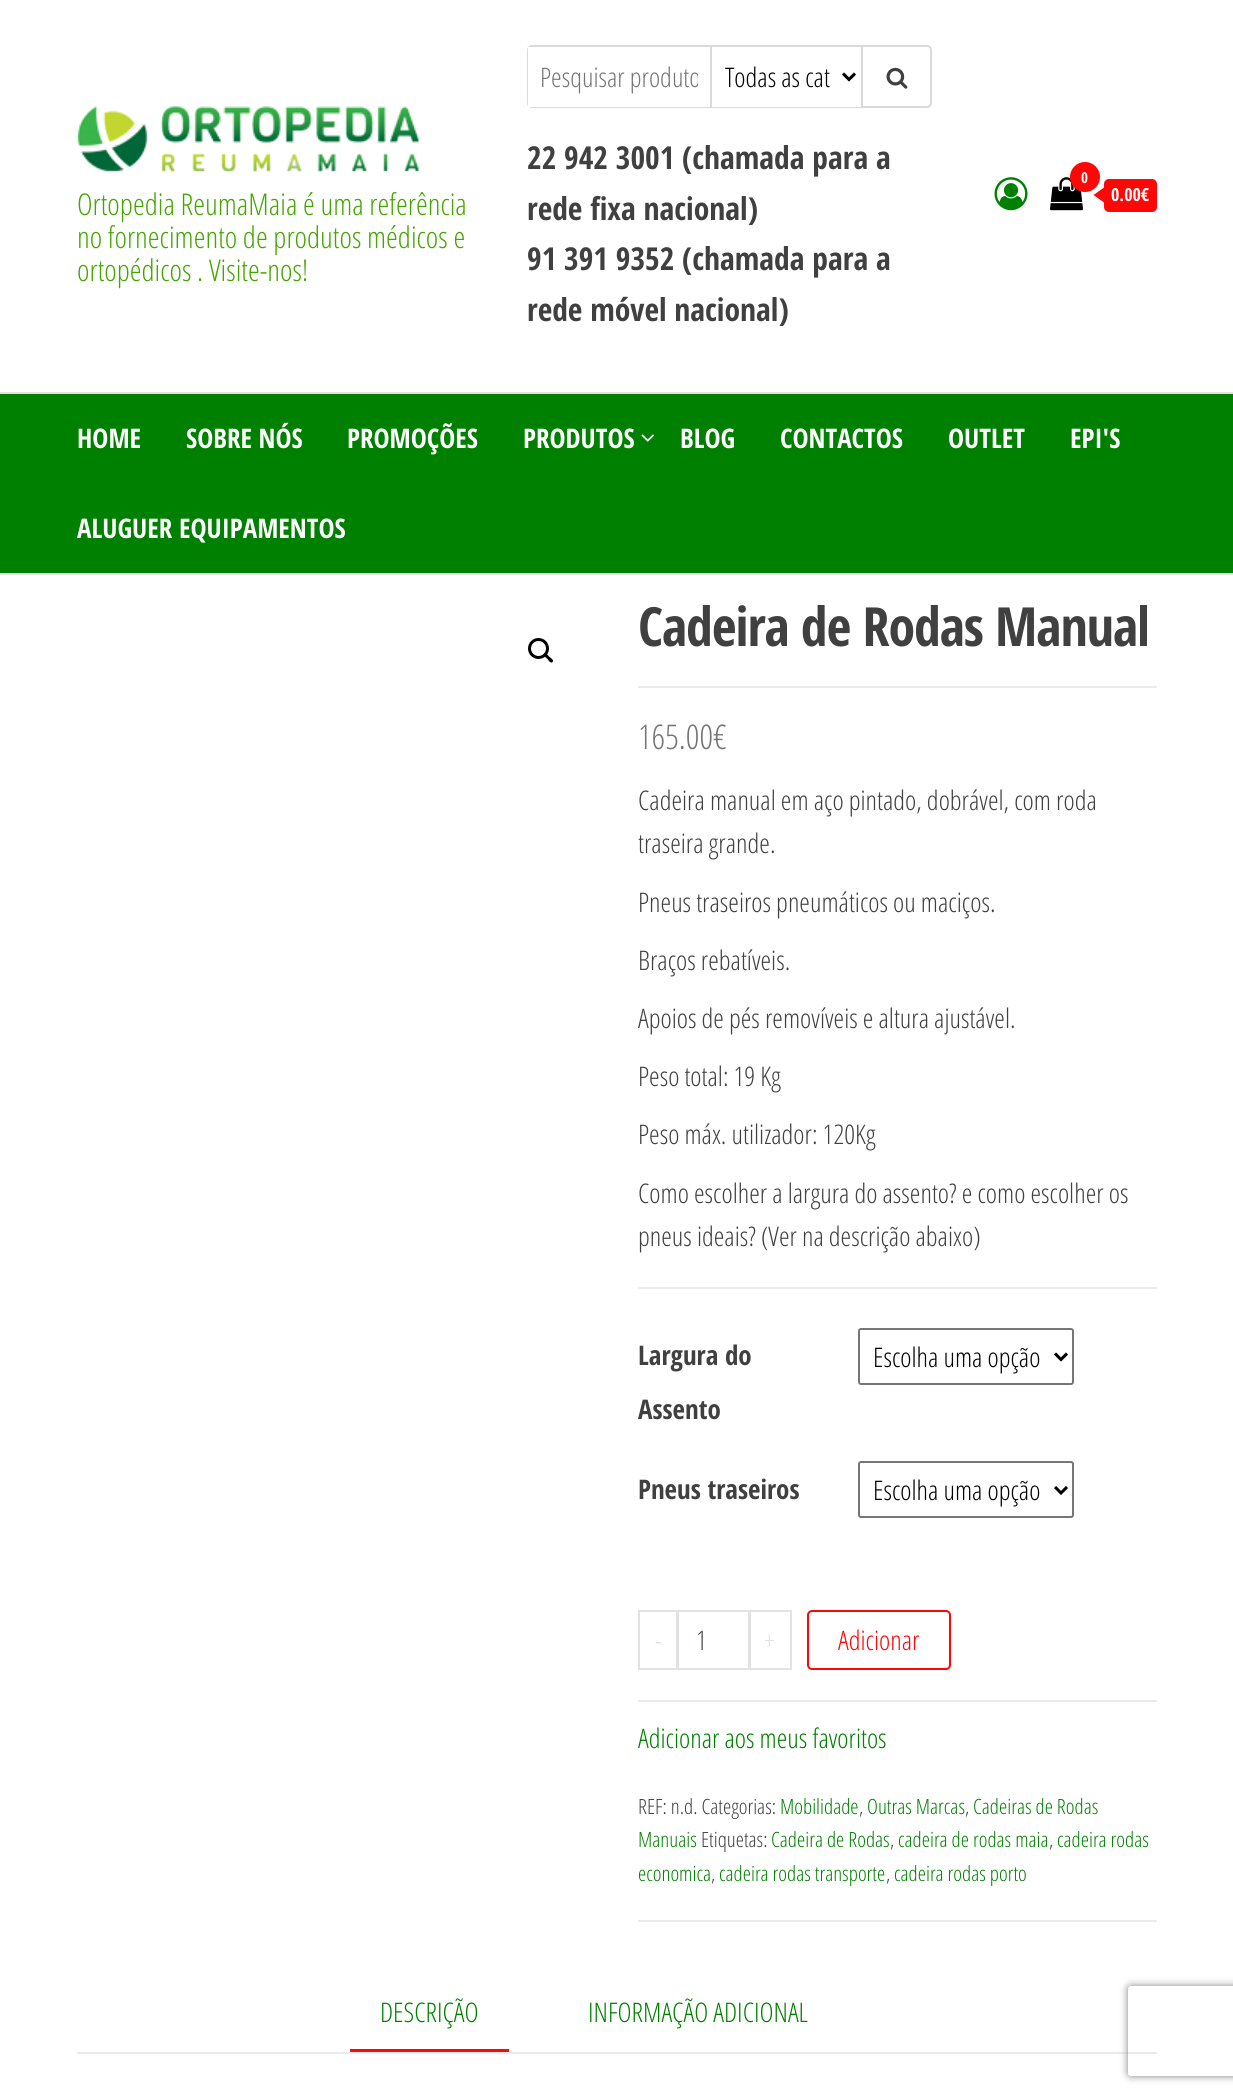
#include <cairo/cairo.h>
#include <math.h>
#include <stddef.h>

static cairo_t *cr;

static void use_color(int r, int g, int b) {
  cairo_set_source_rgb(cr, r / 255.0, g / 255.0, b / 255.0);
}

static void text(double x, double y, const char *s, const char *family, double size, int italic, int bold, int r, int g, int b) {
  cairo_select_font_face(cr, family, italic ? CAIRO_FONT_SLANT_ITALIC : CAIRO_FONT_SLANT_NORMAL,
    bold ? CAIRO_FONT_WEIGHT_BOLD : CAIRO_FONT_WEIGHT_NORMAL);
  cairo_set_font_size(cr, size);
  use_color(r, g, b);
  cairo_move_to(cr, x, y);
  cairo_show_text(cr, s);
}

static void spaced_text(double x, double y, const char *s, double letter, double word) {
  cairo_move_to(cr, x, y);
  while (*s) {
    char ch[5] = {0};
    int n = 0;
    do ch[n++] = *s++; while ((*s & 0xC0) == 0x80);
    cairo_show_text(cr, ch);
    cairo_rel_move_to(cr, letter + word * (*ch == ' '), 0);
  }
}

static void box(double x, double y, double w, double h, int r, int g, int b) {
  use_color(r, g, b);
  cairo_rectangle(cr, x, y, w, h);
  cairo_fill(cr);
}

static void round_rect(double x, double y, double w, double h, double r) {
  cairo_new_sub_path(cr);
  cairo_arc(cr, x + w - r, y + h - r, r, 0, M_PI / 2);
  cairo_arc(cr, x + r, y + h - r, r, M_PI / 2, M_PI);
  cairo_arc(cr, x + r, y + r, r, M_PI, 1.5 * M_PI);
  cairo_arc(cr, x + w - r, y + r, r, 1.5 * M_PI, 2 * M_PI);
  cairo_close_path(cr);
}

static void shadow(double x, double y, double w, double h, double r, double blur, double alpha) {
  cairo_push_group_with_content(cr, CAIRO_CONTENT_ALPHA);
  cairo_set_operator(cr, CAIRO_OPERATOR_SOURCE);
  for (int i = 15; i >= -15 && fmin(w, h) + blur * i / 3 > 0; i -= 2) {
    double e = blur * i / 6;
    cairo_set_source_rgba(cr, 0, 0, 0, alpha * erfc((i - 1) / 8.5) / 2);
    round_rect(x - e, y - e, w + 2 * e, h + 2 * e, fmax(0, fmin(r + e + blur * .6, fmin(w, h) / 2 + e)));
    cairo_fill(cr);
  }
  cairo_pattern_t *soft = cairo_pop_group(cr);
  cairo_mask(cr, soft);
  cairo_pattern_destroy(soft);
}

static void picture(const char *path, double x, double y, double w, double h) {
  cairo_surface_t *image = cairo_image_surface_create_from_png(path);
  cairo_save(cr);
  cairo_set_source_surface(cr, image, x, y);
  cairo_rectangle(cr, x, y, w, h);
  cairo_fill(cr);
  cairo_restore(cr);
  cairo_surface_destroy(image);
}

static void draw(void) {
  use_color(255, 255, 255);
  cairo_paint(cr);
  round_rect(528, 46, 403, 61, 4);
  use_color(217, 217, 217);
  cairo_stroke(cr);
  box(528, 47, 182, 60, 255, 255, 255);
  box(710, 47, 2, 60, 217, 217, 217);
  box(712, 106, 149, 1, 255, 255, 255);
  cairo_new_path(cr);
  cairo_move_to(cr, 843, 73.5);
  cairo_line_to(cr, 849, 79.5);
  cairo_line_to(cr, 855, 73.5);
  use_color(0, 0, 0);
  cairo_set_line_width(cr, 3);
  cairo_stroke(cr);
  box(861, 47, 2, 60, 217, 217, 217);
  picture("img_01.png", 886, 67, 22, 22);
  picture("img_02.png", 994, 177, 34, 34);
  picture("img_03.png", 1050, 177, 33, 34);
  use_color(255, 7, 7);
  cairo_arc(cr, 1085, 177, 15, 0, 2 * M_PI);
  cairo_fill(cr);
  round_rect(1104, 179, 53, 33, 5);
  cairo_fill(cr);
  cairo_new_path(cr);
  cairo_move_to(cr, 1104, 187.5);
  cairo_line_to(cr, 1104, 202.5);
  cairo_line_to(cr, 1093.5, 195);
  cairo_close_path(cr);
  cairo_fill(cr);
  picture("img_04.png", 77, 106, 342, 66);
  box(0, 394, 1233, 179, 0, 128, 0);
  box(0, 392, 1233, 2, 226, 226, 226);
  box(0, 573, 1233, 2, 226, 226, 226);
  picture("img_05.png", 641, 434, 13, 8);
  cairo_arc(cr, 538.5, 648.5, 9, 0, 2 * M_PI);
  use_color(0, 0, 0);
  cairo_stroke(cr);
  cairo_new_path(cr);
  cairo_move_to(cr, 544, 653.5);
  cairo_curve_to(cr, 546, 652, 548.5, 656, 549.5, 657);
  cairo_curve_to(cr, 550.5, 657.5, 554.5, 660.5, 552.5, 662);
  cairo_curve_to(cr, 551, 664, 548, 660, 547.5, 659);
  cairo_curve_to(cr, 546.5, 658, 542.5, 655.5, 544, 653.5);
  cairo_close_path(cr);
  cairo_fill(cr);
  box(638, 686, 519, 2, 234, 234, 234);
  box(638, 1287, 519, 2, 234, 234, 234);
  box(638, 1700, 519, 2, 234, 234, 234);
  round_rect(859, 1329, 214, 55, 2);
  use_color(118, 118, 118);
  cairo_set_line_width(cr, 2);
  cairo_stroke(cr);
  cairo_new_path(cr);
  cairo_move_to(cr, 1055, 1353.5);
  cairo_line_to(cr, 1061, 1359.5);
  cairo_line_to(cr, 1067, 1353.5);
  use_color(0, 0, 0);
  cairo_set_line_width(cr, 3);
  cairo_stroke(cr);
  round_rect(859, 1462, 214, 55, 2);
  use_color(118, 118, 118);
  cairo_set_line_width(cr, 2);
  cairo_stroke(cr);
  cairo_new_path(cr);
  cairo_move_to(cr, 1055, 1487);
  cairo_line_to(cr, 1061, 1493);
  cairo_line_to(cr, 1067, 1487);
  use_color(0, 0, 0);
  cairo_set_line_width(cr, 3);
  cairo_stroke(cr);
  cairo_rectangle(cr, 639, 1611, 38, 58);
  use_color(226, 226, 226);
  cairo_set_line_width(cr, 2);
  cairo_stroke(cr);
  cairo_rectangle(cr, 678, 1611, 71, 58);
  cairo_stroke(cr);
  cairo_rectangle(cr, 750, 1611, 41, 58);
  cairo_stroke(cr);
  round_rect(808, 1611, 142, 58, 4);
  use_color(255, 7, 7);
  cairo_stroke(cr);
  box(638, 1920, 519, 2, 234, 234, 234);
  box(77, 2052, 1080, 2, 234, 234, 234);
  box(350, 2049, 159, 3, 255, 7, 7);
  cairo_save(cr);
  cairo_set_fill_rule(cr, CAIRO_FILL_RULE_EVEN_ODD);
  cairo_new_path(cr);
  cairo_move_to(cr, 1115, 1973);
  cairo_line_to(cr, 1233, 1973);
  cairo_line_to(cr, 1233, 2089);
  cairo_line_to(cr, 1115, 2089);
  cairo_close_path(cr);
  cairo_move_to(cr, 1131, 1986);
  cairo_line_to(cr, 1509, 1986);
  cairo_curve_to(cr, 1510.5, 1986, 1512, 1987.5, 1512, 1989);
  cairo_line_to(cr, 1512, 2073);
  cairo_curve_to(cr, 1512, 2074.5, 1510.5, 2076, 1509, 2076);
  cairo_line_to(cr, 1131, 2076);
  cairo_curve_to(cr, 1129.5, 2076, 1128, 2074.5, 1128, 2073);
  cairo_line_to(cr, 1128, 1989);
  cairo_curve_to(cr, 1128, 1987.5, 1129.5, 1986, 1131, 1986);
  cairo_close_path(cr);
  cairo_clip(cr);
  use_color(128, 128, 128);
  shadow(1128, 1986, 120, 90, 3, 4, 1);
  cairo_restore(cr);
  cairo_save(cr);
  cairo_rectangle(cr, 540, 59, 158, 36);
  cairo_clip(cr);
  text(540, 87, "Pesquisar produto", "Open Sans Condensed Light", 27, 0, 0, 117, 117, 117);
  cairo_restore(cr);
  text(725, 87, "Todas as cat", "Open Sans Condensed Light", 27, 0, 0, 0, 0, 0);
  text(527, 169, "22 942 3001 (chamada para a", "Open Sans Condensed", 31.6, 0, 1, 64, 64, 64);
  text(527, 220, "rede fixa nacional)", "Open Sans Condensed", 31.6, 0, 1, 64, 64, 64);
  text(527, 270, "91 391 9352 (chamada para a", "Open Sans Condensed", 31.6, 0, 1, 64, 64, 64);
  text(527, 321, "rede móvel nacional)", "Open Sans Condensed", 31.6, 0, 1, 64, 64, 64);
  text(1081, 183, "0", "Open Sans Condensed", 15, 0, 1, 255, 255, 255);
  text(1111, 201, "0.00€", "Open Sans Condensed", 18, 0, 1, 255, 255, 255);
  text(77, 215, "Ortopedia ReumaMaia é uma referência", "Open Sans Condensed Light", 30, 0, 0, 70, 165, 3);
  text(77, 248, "no fornecimento de produtos médicos e", "Open Sans Condensed Light", 30, 0, 0, 70, 165, 3);
  text(77, 281, "ortopédicos . Visite-nos!", "Open Sans Condensed Light", 30, 0, 0, 70, 165, 3);
  text(77, 448, "HOME", "Open Sans Condensed", 27, 0, 1, 255, 255, 255);
  text(186, 448, "SOBRE NÓS", "Open Sans Condensed", 27, 0, 1, 255, 255, 255);
  text(347, 448, "PROMOÇÕES", "Open Sans Condensed", 27, 0, 1, 255, 255, 255);
  text(523, 448, "PRODUTOS", "Open Sans Condensed", 27, 0, 1, 255, 255, 255);
  text(680, 448, "BLOG", "Open Sans Condensed", 27, 0, 1, 255, 255, 255);
  text(780, 448, "CONTACTOS", "Open Sans Condensed", 27, 0, 1, 255, 255, 255);
  text(948, 448, "OUTLET", "Open Sans Condensed", 27, 0, 1, 255, 255, 255);
  text(1070, 448, "EPI'S", "Open Sans Condensed", 27, 0, 1, 255, 255, 255);
  text(77, 538, "ALUGUER EQUIPAMENTOS", "Open Sans Condensed", 27, 0, 1, 255, 255, 255);
  cairo_set_font_size(cr, 54);
  use_color(64, 64, 64);
  spaced_text(638, 646, "Cadeira de Rodas Manual", -1.1, 0);
  text(638, 749, "165.00€", "Open Sans Condensed Light", 34, 0, 0, 117, 117, 117);
  text(638, 810, "Cadeira manual em aço pintado, dobrável, com roda", "Open Sans Condensed Light", 27, 0, 0, 64, 64, 64);
  text(638, 853, "traseira grande.", "Open Sans Condensed Light", 27, 0, 0, 64, 64, 64);
  text(638, 912, "Pneus traseiros pneumáticos ou maciços.", "Open Sans Condensed Light", 27, 0, 0, 64, 64, 64);
  text(638, 970, "Braços rebatíveis.", "Open Sans Condensed Light", 27, 0, 0, 64, 64, 64);
  text(638, 1028, "Apoios de pés removíveis e altura ajustável.", "Open Sans Condensed Light", 27, 0, 0, 64, 64, 64);
  text(638, 1086, "Peso total: 19 Kg", "Open Sans Condensed Light", 27, 0, 0, 64, 64, 64);
  text(638, 1144, "Peso máx. utilizador: 120Kg", "Open Sans Condensed Light", 27, 0, 0, 64, 64, 64);
  text(638, 1203, "Como escolher a largura do assento? e como escolher os", "Open Sans Condensed Light", 27, 0, 0, 64, 64, 64);
  text(638, 1246, "pneus ideais? (Ver na descrição abaixo)", "Open Sans Condensed Light", 27, 0, 0, 64, 64, 64);
  text(638, 1365, "Largura do", "Open Sans Condensed", 27, 0, 1, 64, 64, 64);
  text(638, 1419, "Assento", "Open Sans Condensed", 27, 0, 1, 64, 64, 64);
  text(873, 1367, "Escolha uma opção", "Open Sans Condensed Light", 27, 0, 0, 0, 0, 0);
  text(638, 1499, "Pneus traseiros", "Open Sans Condensed", 27, 0, 1, 64, 64, 64);
  text(873, 1500, "Escolha uma opção", "Open Sans Condensed Light", 27, 0, 0, 0, 0, 0);
  text(655, 1650, "-", "Open Sans Condensed Light", 27, 0, 0, 226, 226, 226);
  text(696, 1650, "1", "Open Sans Condensed Light", 27, 0, 0, 70, 74, 76);
  text(764, 1650, "+", "Open Sans Condensed Light", 27, 0, 0, 226, 226, 226);
  text(838, 1650, "Adicionar", "Open Sans Condensed Light", 27, 0, 0, 255, 7, 7);
  text(638, 1748, "Adicionar aos meus favoritos", "Open Sans Condensed Light", 27, 0, 0, 0, 128, 0);
  text(638, 1814, "REF: n.d. Categorias:", "Open Sans Condensed Light", 21, 0, 0, 64, 64, 64);
  text(780, 1814, "Mobilidade", "Open Sans Condensed Light", 21, 0, 0, 0, 128, 0);
  text(859, 1814, ",", "Open Sans Condensed Light", 21, 0, 0, 64, 64, 64);
  text(867, 1814, "Outras Marcas", "Open Sans Condensed Light", 21, 0, 0, 0, 128, 0);
  text(965, 1814, ",", "Open Sans Condensed Light", 21, 0, 0, 64, 64, 64);
  text(973, 1814, "Cadeiras de Rodas", "Open Sans Condensed Light", 21, 0, 0, 0, 128, 0);
  text(638, 1847, "Manuais", "Open Sans Condensed Light", 21, 0, 0, 0, 128, 0);
  text(701, 1847, "Etiquetas:", "Open Sans Condensed Light", 21, 0, 0, 64, 64, 64);
  text(771, 1847, "Cadeira de Rodas", "Open Sans Condensed Light", 21, 0, 0, 0, 128, 0);
  text(890, 1847, ",", "Open Sans Condensed Light", 21, 0, 0, 64, 64, 64);
  text(898, 1847, "cadeira de rodas maia", "Open Sans Condensed Light", 21, 0, 0, 0, 128, 0);
  text(1049, 1847, ",", "Open Sans Condensed Light", 21, 0, 0, 64, 64, 64);
  text(1057, 1847, "cadeira rodas", "Open Sans Condensed Light", 21, 0, 0, 0, 128, 0);
  text(638, 1881, "economica", "Open Sans Condensed Light", 21, 0, 0, 0, 128, 0);
  text(711, 1881, ",", "Open Sans Condensed Light", 21, 0, 0, 64, 64, 64);
  text(719, 1881, "cadeira rodas transporte", "Open Sans Condensed Light", 21, 0, 0, 0, 128, 0);
  text(886, 1881, ",", "Open Sans Condensed Light", 21, 0, 0, 64, 64, 64);
  text(894, 1881, "cadeira rodas porto", "Open Sans Condensed Light", 21, 0, 0, 0, 128, 0);
  text(380, 2022, "DESCRIÇÃO", "Open Sans Condensed Light", 27, 0, 0, 0, 128, 0);
  text(588, 2022, "INFORMAÇÃO ADICIONAL", "Open Sans Condensed Light", 27, 0, 0, 0, 128, 0);
}

int main(void) {
  cairo_surface_t *surface = cairo_image_surface_create(CAIRO_FORMAT_RGB24, 1233, 2097);
  cr = cairo_create(surface);
  cairo_font_options_t *options = cairo_font_options_create();
  cairo_font_options_set_hint_metrics(options, CAIRO_HINT_METRICS_OFF);
  cairo_font_options_set_hint_style(options, CAIRO_HINT_STYLE_NONE);
  cairo_set_font_options(cr, options);
  cairo_set_miter_limit(cr, 4);
  draw();
  cairo_surface_write_to_png(surface, "out.png");
  cairo_font_options_destroy(options);
  cairo_destroy(cr);
  cairo_surface_destroy(surface);
  return 0;
}
